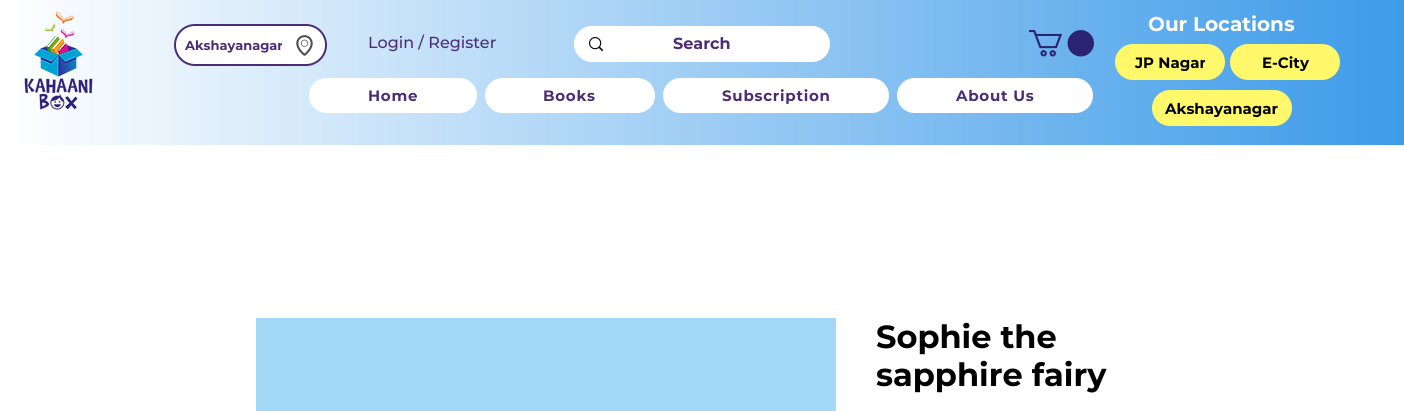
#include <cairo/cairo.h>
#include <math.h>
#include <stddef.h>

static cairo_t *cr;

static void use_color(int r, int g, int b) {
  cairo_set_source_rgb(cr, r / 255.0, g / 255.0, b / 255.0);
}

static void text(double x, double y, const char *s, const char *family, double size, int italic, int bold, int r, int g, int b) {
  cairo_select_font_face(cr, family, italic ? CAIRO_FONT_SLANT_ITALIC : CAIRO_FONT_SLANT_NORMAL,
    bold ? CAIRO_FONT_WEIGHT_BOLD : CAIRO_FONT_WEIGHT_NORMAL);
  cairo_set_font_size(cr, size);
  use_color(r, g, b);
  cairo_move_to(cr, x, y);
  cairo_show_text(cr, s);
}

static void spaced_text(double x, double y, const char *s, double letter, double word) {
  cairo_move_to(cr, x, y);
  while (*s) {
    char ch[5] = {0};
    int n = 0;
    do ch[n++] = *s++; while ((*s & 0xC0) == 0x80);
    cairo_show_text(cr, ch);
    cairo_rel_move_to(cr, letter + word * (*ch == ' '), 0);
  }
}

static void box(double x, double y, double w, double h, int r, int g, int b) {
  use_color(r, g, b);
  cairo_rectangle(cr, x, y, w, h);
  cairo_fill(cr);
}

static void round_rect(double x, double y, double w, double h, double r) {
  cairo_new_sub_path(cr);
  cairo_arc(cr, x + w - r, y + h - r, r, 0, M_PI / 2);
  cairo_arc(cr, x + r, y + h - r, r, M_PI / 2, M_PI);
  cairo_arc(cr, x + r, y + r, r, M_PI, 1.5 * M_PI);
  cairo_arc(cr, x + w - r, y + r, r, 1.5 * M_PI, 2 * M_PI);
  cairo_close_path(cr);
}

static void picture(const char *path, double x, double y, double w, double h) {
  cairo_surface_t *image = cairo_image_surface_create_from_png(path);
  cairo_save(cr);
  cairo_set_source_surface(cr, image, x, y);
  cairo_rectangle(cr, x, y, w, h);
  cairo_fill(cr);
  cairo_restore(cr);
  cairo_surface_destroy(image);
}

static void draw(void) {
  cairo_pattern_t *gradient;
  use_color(255, 255, 255);
  cairo_paint(cr);
  gradient = cairo_pattern_create_linear(1404, 72, 0, 73);
  cairo_pattern_add_color_stop_rgba(gradient, 0, 0.239, 0.608, 0.914, 1);
  cairo_pattern_add_color_stop_rgba(gradient, 1, 1, 1, 1, 1);
  cairo_set_source(cr, gradient);
  cairo_pattern_destroy(gradient);
  cairo_rectangle(cr, 18, 0, 1386, 145);
  cairo_fill(cr);
  picture("img_01.png", 24, 11, 69, 99);
  use_color(255, 255, 255);
  round_rect(175, 25, 151, 40, 20);
  cairo_fill_preserve(cr);
  use_color(74, 45, 117);
  cairo_stroke(cr);
  picture("img_02.png", 296, 35, 17, 21);
  use_color(255, 255, 255);
  round_rect(574, 26, 256, 36, 18);
  cairo_fill(cr);
  picture("img_03.png", 589, 37, 14, 14);
  picture("img_04.png", 1029, 30, 65, 27);
  round_rect(309, 78, 168, 35, 17.5);
  cairo_fill(cr);
  round_rect(485, 78, 170, 35, 17.5);
  cairo_fill(cr);
  round_rect(663, 78, 226, 35, 17.5);
  cairo_fill(cr);
  round_rect(897, 78, 196, 35, 17.5);
  cairo_fill(cr);
  use_color(255, 248, 107);
  round_rect(1230, 44, 110, 36, 18);
  cairo_fill(cr);
  round_rect(1115, 44, 110, 36, 18);
  cairo_fill(cr);
  round_rect(1152, 90, 140, 36, 18);
  cairo_fill(cr);
  box(256, 318, 580, 93, 163, 217, 246);
  text(1148, 31, "Our Locations", "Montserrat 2", 20, 0, 1, 255, 255, 255);
  cairo_save(cr);
  cairo_rectangle(cr, 185, 37, 97, 16);
  cairo_clip(cr);
  text(185, 50, "Akshayanagar", "Montserrat", 13, 0, 1, 74, 45, 117);
  cairo_restore(cr);
  text(368, 48, "Login / Register", "Montserrat Medium", 16, 0, 0, 74, 45, 117);
  text(673, 49, "Search", "Montserrat 2", 16, 0, 1, 74, 45, 117);
  cairo_set_font_size(cr, 15);
  spaced_text(368, 101, "Home", 0.75, 0);
  spaced_text(543, 101, "Books", 0.75, 0);
  spaced_text(722, 101, "Subscription", 0.75, 0);
  spaced_text(956, 101, "About Us", 0.75, 0);
  text(1262, 68, "E-City", "Montserrat", 15, 0, 1, 0, 0, 0);
  cairo_save(cr);
  cairo_rectangle(cr, 1135, 53, 70, 19);
  cairo_clip(cr);
  text(1135, 68, "JP Nagar", "Montserrat", 15, 0, 1, 0, 0, 0);
  cairo_restore(cr);
  text(1165, 114, "Akshayanagar", "Montserrat", 15, 0, 1, 0, 0, 0);
  text(876, 348, "Sophie the", "Montserrat 2", 32, 0, 1, 0, 0, 0);
  text(876, 386, "sapphire fairy", "Montserrat 2", 32, 0, 1, 0, 0, 0);
}

int main(void) {
  cairo_surface_t *surface = cairo_image_surface_create(CAIRO_FORMAT_RGB24, 1404, 411);
  cr = cairo_create(surface);
  cairo_font_options_t *options = cairo_font_options_create();
  cairo_font_options_set_hint_metrics(options, CAIRO_HINT_METRICS_OFF);
  cairo_font_options_set_hint_style(options, CAIRO_HINT_STYLE_NONE);
  cairo_set_font_options(cr, options);
  cairo_set_miter_limit(cr, 4);
  draw();
  cairo_surface_write_to_png(surface, "out.png");
  cairo_font_options_destroy(options);
  cairo_destroy(cr);
  cairo_surface_destroy(surface);
  return 0;
}
